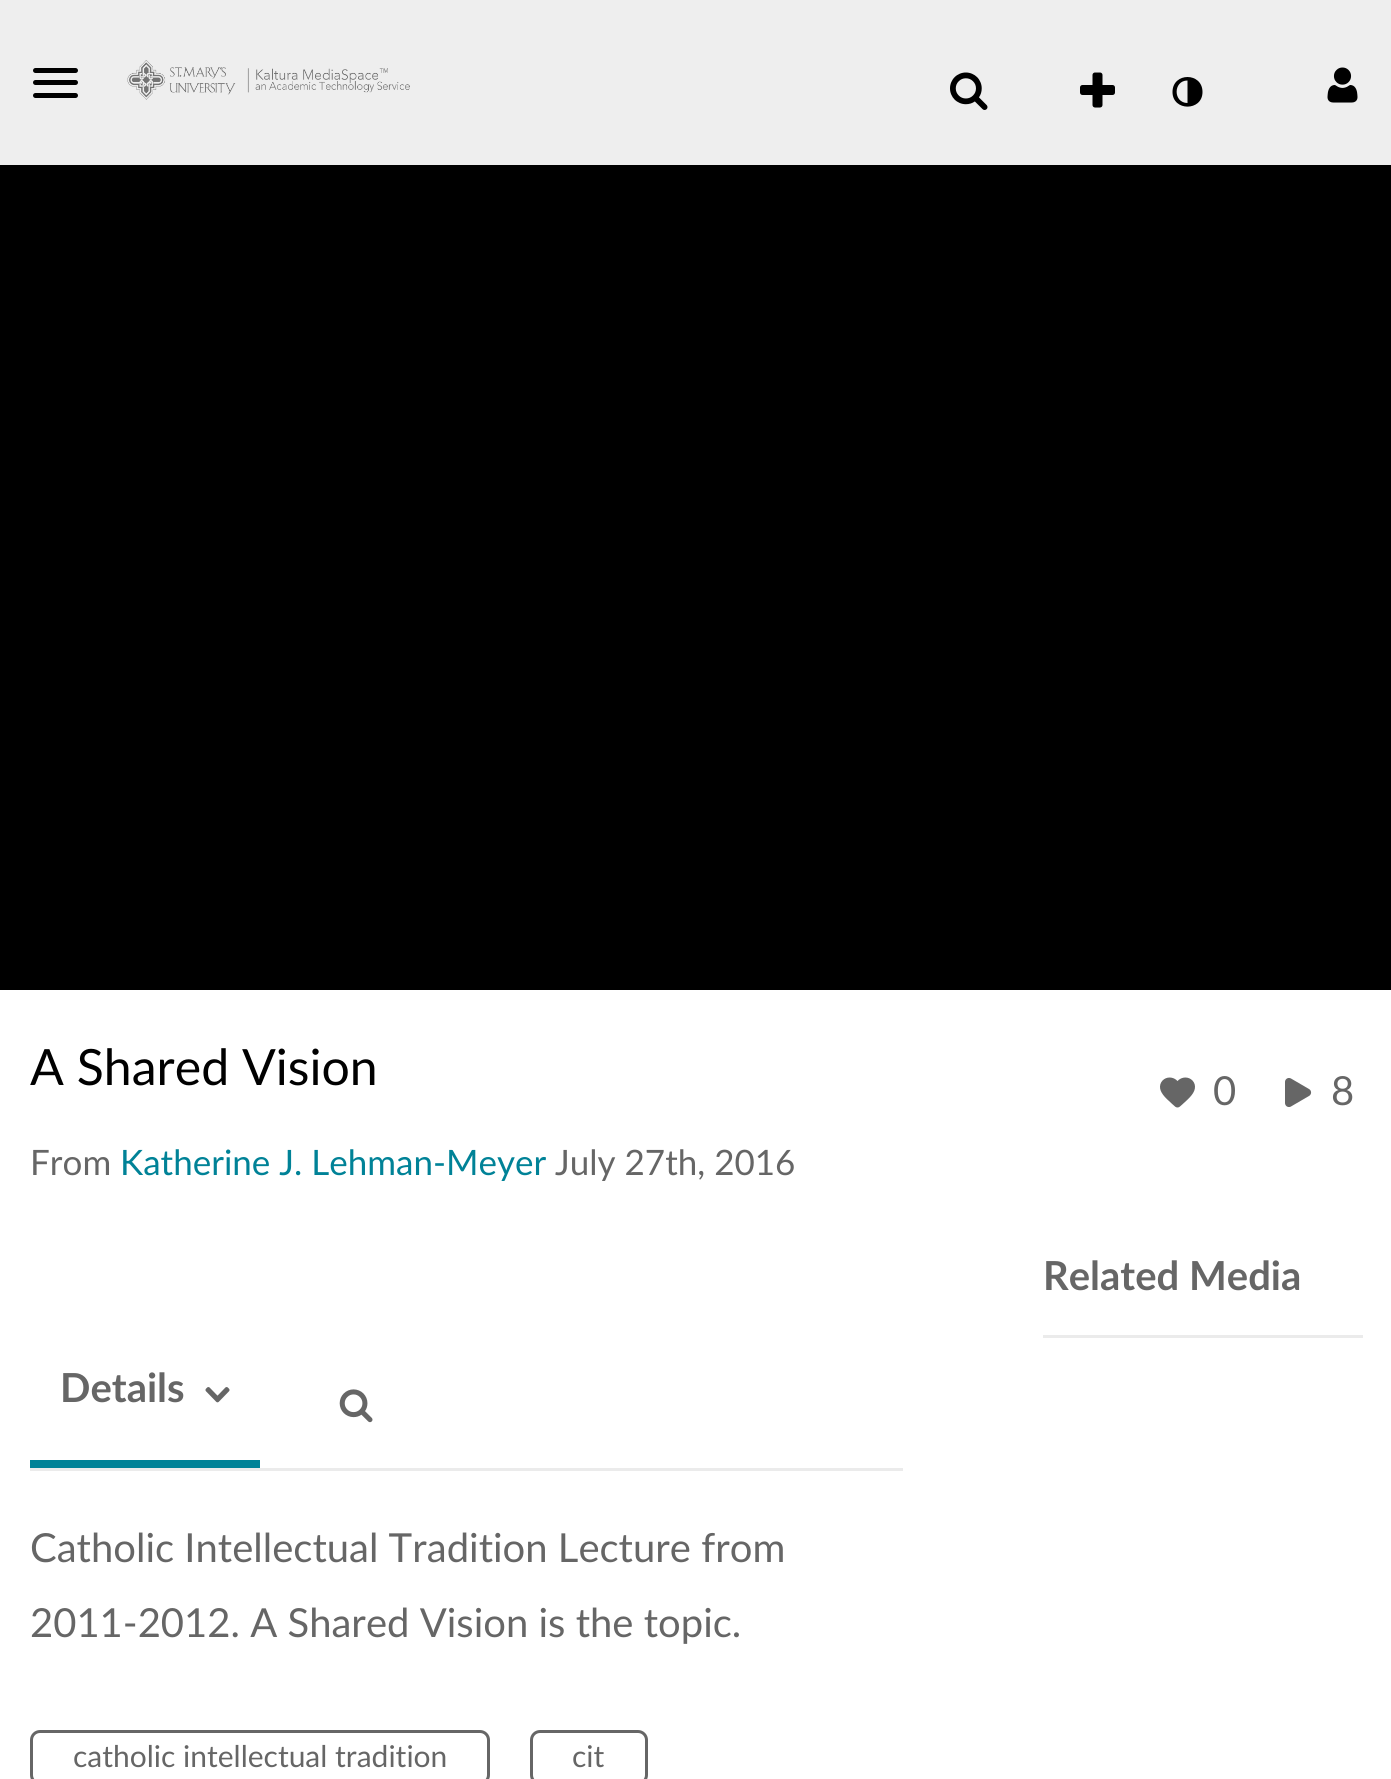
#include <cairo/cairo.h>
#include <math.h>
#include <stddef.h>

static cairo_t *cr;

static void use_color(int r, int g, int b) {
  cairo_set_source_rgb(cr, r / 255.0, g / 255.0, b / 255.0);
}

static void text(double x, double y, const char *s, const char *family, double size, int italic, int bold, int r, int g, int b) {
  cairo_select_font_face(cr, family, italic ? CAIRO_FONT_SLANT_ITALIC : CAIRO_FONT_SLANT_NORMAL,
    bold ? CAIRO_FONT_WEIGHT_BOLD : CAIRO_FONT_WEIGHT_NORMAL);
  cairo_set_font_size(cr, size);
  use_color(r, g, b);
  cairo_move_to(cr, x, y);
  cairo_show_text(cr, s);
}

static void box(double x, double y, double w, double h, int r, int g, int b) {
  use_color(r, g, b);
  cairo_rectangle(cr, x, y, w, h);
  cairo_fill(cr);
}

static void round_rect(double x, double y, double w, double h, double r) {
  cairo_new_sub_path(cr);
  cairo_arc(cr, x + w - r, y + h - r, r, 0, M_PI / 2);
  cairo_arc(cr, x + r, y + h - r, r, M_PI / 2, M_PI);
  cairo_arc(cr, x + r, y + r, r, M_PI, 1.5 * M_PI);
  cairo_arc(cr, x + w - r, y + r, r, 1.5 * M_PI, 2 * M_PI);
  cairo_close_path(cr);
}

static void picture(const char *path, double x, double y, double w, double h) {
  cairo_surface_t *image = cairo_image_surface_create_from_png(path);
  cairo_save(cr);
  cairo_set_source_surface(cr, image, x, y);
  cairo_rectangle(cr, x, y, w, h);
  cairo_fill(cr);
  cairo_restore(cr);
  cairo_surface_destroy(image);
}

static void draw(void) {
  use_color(255, 255, 255);
  cairo_paint(cr);
  box(0, 0, 1391, 165, 238, 238, 238);
  use_color(0, 0, 0);
  round_rect(33, 68, 45, 5, 2.5);
  cairo_fill(cr);
  round_rect(33, 80, 45, 5, 2.5);
  cairo_fill(cr);
  round_rect(33, 93, 45, 5, 2.5);
  cairo_fill(cr);
  picture("img_01.png", 127, 60, 283, 40);
  picture("img_02.png", 950, 72, 38, 38);
  picture("img_03.png", 1080, 72, 35, 36);
  cairo_new_path(cr);
  cairo_move_to(cr, 1187.5, 103);
  cairo_line_to(cr, 1187.5, 80.5);
  cairo_curve_to(cr, 1173, 80.5, 1173, 103, 1187.5, 103);
  cairo_close_path(cr);
  cairo_move_to(cr, 1202.5, 92);
  cairo_curve_to(cr, 1202.5, 111.5, 1172.5, 111.5, 1172.5, 92);
  cairo_curve_to(cr, 1172.5, 72, 1202.5, 72, 1202.5, 92);
  cairo_close_path(cr);
  cairo_fill(cr);
  picture("img_04.png", 1327, 67, 31, 36);
  box(0, 165, 1391, 825, 0, 0, 0);
  picture("img_05.png", 1160, 1077, 35, 31);
  picture("img_06.png", 1285, 1078, 27, 29);
  box(1043, 1335, 320, 3, 235, 235, 235);
  box(30, 1468, 873, 3, 235, 235, 235);
  box(30, 1460, 230, 8, 0, 130, 151);
  picture("img_07.png", 205, 1387, 25, 16);
  picture("img_08.png", 339, 1389, 34, 34);
  round_rect(31.5, 1731.5, 457, 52, 8.5);
  use_color(102, 102, 102);
  cairo_set_line_width(cr, 3);
  cairo_stroke(cr);
  round_rect(531.5, 1731.5, 115, 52, 8.5);
  cairo_stroke(cr);
  text(30, 1085, "A Shared Vision", "Lato", 50, 0, 0, 0, 0, 0);
  text(30, 1175, "From", "Lato", 35, 0, 0, 102, 102, 102);
  text(120, 1175, "Katherine J. Lehman-Meyer", "Lato", 35, 0, 0, 0, 130, 151);
  text(555, 1175, "July 27th, 2016", "Lato", 35, 0, 0, 102, 102, 102);
  text(1213, 1105, "0", "Lato", 40, 0, 0, 102, 102, 102);
  text(1331, 1105, "8", "Lato", 40, 0, 0, 102, 102, 102);
  text(1043, 1290, "Related Media", "Lato", 40, 0, 1, 102, 102, 102);
  text(60, 1402, "Details", "Lato", 40, 0, 1, 102, 102, 102);
  text(30, 1562, "Catholic Intellectual Tradition Lecture from", "Lato", 40, 0, 0, 102, 102, 102);
  text(30, 1637, "2011-2012. A Shared Vision is the topic.", "Lato", 40, 0, 0, 102, 102, 102);
  text(73, 1767, "catholic intellectual tradition", "Lato", 30, 0, 0, 102, 102, 102);
  text(572, 1767, "cit", "Lato", 30, 0, 0, 102, 102, 102);
}

int main(void) {
  cairo_surface_t *surface = cairo_image_surface_create(CAIRO_FORMAT_RGB24, 1391, 1779);
  cr = cairo_create(surface);
  cairo_font_options_t *options = cairo_font_options_create();
  cairo_font_options_set_hint_metrics(options, CAIRO_HINT_METRICS_OFF);
  cairo_font_options_set_hint_style(options, CAIRO_HINT_STYLE_NONE);
  cairo_set_font_options(cr, options);
  cairo_set_miter_limit(cr, 4);
  draw();
  cairo_surface_write_to_png(surface, "out.png");
  cairo_font_options_destroy(options);
  cairo_destroy(cr);
  cairo_surface_destroy(surface);
  return 0;
}
